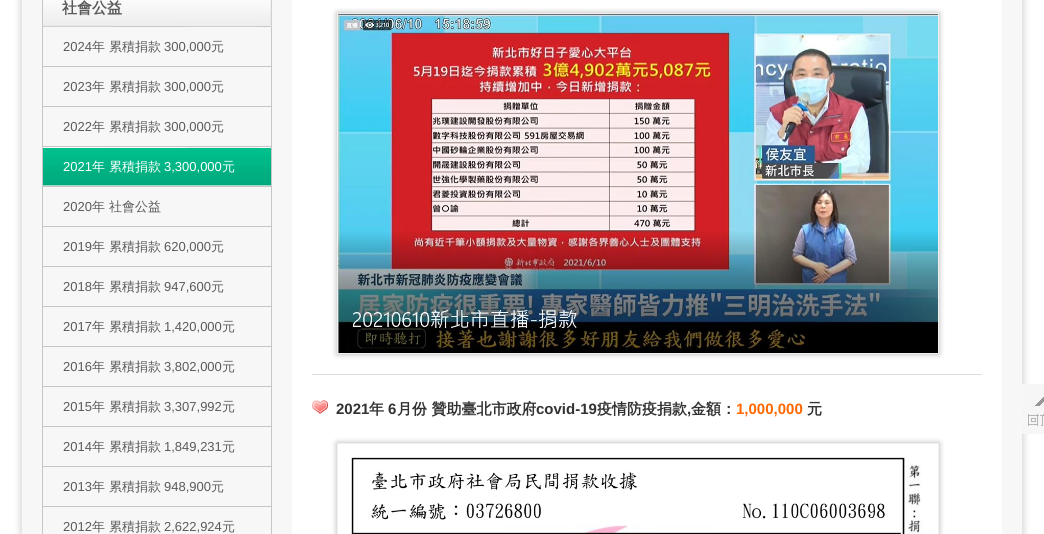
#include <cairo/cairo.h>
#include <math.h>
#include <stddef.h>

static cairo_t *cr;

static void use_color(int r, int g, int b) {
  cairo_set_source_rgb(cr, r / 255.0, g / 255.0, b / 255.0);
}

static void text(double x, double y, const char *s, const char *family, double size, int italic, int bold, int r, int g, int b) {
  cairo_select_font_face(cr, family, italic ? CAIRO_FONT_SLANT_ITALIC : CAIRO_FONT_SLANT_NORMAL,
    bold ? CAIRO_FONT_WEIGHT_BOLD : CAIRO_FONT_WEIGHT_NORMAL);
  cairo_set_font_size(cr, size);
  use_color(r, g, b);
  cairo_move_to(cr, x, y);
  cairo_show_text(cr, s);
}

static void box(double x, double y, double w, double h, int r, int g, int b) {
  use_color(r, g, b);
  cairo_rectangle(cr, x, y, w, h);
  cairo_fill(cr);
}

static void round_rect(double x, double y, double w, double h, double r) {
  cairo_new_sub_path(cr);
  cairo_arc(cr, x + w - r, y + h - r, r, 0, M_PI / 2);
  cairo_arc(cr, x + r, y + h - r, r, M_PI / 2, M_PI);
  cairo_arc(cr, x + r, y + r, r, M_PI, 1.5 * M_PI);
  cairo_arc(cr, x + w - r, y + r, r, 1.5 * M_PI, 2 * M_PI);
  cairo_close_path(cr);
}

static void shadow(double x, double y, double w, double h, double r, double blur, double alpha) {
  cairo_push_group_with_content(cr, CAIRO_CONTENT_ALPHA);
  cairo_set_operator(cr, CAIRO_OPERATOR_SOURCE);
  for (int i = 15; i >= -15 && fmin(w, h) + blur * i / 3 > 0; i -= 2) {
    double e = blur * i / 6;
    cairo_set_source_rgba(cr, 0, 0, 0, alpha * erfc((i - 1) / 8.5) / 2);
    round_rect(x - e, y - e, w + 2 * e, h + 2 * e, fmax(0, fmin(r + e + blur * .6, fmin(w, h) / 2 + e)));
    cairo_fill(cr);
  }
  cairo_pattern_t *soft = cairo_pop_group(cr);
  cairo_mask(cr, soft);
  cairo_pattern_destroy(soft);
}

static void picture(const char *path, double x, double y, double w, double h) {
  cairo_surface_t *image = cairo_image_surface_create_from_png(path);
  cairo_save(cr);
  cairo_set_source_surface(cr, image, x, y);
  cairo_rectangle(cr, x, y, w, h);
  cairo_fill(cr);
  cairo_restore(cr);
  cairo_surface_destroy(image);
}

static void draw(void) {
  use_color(255, 255, 255);
  cairo_paint(cr);
  use_color(90, 90, 90);
  shadow(19, -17, 1006, 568, 8, 3, 0.2);
  box(22, 0, 1000, 534, 247, 247, 247);
  picture("img_01.png", 42, 0, 230, 27);
  box(271, 27, 1, 507, 198, 198, 198);
  box(42, 66, 230, 1, 198, 198, 198);
  box(42, 27, 1, 40, 198, 198, 198);
  box(42, 106, 230, 1, 198, 198, 198);
  box(42, 67, 1, 40, 198, 198, 198);
  box(42, 146, 230, 1, 198, 198, 198);
  box(42, 107, 1, 40, 198, 198, 198);
  picture("img_02.png", 43, 147, 228, 39);
  box(42, 186, 230, 1, 198, 198, 198);
  box(42, 147, 1, 40, 198, 198, 198);
  box(42, 226, 230, 1, 198, 198, 198);
  box(42, 187, 1, 40, 198, 198, 198);
  box(42, 266, 230, 1, 198, 198, 198);
  box(42, 227, 1, 40, 198, 198, 198);
  box(42, 306, 230, 1, 198, 198, 198);
  box(42, 267, 1, 40, 198, 198, 198);
  box(42, 346, 230, 1, 198, 198, 198);
  box(42, 307, 1, 40, 198, 198, 198);
  box(42, 386, 230, 1, 198, 198, 198);
  box(42, 347, 1, 40, 198, 198, 198);
  box(42, 426, 230, 1, 198, 198, 198);
  box(42, 387, 1, 40, 198, 198, 198);
  box(42, 466, 230, 1, 198, 198, 198);
  box(42, 427, 1, 40, 198, 198, 198);
  box(42, 506, 230, 1, 198, 198, 198);
  box(42, 467, 1, 67, 198, 198, 198);
  box(292, 0, 710, 534, 255, 255, 255);
  box(312, 374, 670, 1, 221, 221, 221);
  use_color(0, 0, 0);
  shadow(337, 13, 602, 341, 0, 3, 0.3);
  cairo_rectangle(cr, 337.5, 13.5, 601, 340);
  use_color(240, 240, 240);
  cairo_set_line_width(cr, 1);
  cairo_stroke(cr);
  picture("img_03.png", 338, 14, 600, 339);
  picture("img_04.png", 312, 400, 16, 14);
  cairo_save(cr);
  cairo_set_fill_rule(cr, CAIRO_FILL_RULE_EVEN_ODD);
  cairo_new_path(cr);
  cairo_move_to(cr, 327, 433);
  cairo_line_to(cr, 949, 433);
  cairo_line_to(cr, 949, 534);
  cairo_line_to(cr, 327, 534);
  cairo_close_path(cr);
  cairo_move_to(cr, 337, 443);
  cairo_line_to(cr, 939, 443);
  cairo_line_to(cr, 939, 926);
  cairo_line_to(cr, 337, 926);
  cairo_close_path(cr);
  cairo_clip(cr);
  use_color(0, 0, 0);
  shadow(337, 443, 602, 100, 0, 3, 0.3);
  cairo_restore(cr);
  cairo_rectangle(cr, 337.5, 443.5, 601, 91);
  cairo_stroke(cr);
  picture("img_05.png", 351, 457, 571, 77);
  picture("img_06.png", 1022, 384, 22, 50);
  text(62, 13, "社會公益", "WenQuanYi Zen Hei", 15, 0, 1, 90, 90, 90);
  text(63, 51, "2024", "Liberation Sans", 13, 0, 0, 90, 90, 90);
  text(92, 51, "年 累積捐款", "WenQuanYi Zen Hei Medium", 13, 0, 0, 90, 90, 90);
  text(164, 51, "300,000", "Liberation Sans", 13, 0, 0, 90, 90, 90);
  text(211, 51, "元", "WenQuanYi Zen Hei Medium", 13, 0, 0, 90, 90, 90);
  text(63, 91, "2023", "Liberation Sans", 13, 0, 0, 90, 90, 90);
  text(92, 91, "年 累積捐款", "WenQuanYi Zen Hei Medium", 13, 0, 0, 90, 90, 90);
  text(164, 91, "300,000", "Liberation Sans", 13, 0, 0, 90, 90, 90);
  text(211, 91, "元", "WenQuanYi Zen Hei Medium", 13, 0, 0, 90, 90, 90);
  text(63, 131, "2022", "Liberation Sans", 13, 0, 0, 90, 90, 90);
  text(92, 131, "年 累積捐款", "WenQuanYi Zen Hei Medium", 13, 0, 0, 90, 90, 90);
  text(164, 131, "300,000", "Liberation Sans", 13, 0, 0, 90, 90, 90);
  text(211, 131, "元", "WenQuanYi Zen Hei Medium", 13, 0, 0, 90, 90, 90);
  text(63, 171, "2021", "Liberation Sans", 13, 0, 0, 255, 255, 255);
  text(92, 171, "年 累積捐款", "WenQuanYi Zen Hei Medium", 13, 0, 0, 255, 255, 255);
  text(164, 171, "3,300,000", "Liberation Sans", 13, 0, 0, 255, 255, 255);
  text(222, 171, "元", "WenQuanYi Zen Hei Medium", 13, 0, 0, 255, 255, 255);
  text(63, 211, "2020", "Liberation Sans", 13, 0, 0, 90, 90, 90);
  text(92, 211, "年 社會公益", "WenQuanYi Zen Hei Medium", 13, 0, 0, 90, 90, 90);
  text(63, 251, "2019", "Liberation Sans", 13, 0, 0, 90, 90, 90);
  text(92, 251, "年 累積捐款", "WenQuanYi Zen Hei Medium", 13, 0, 0, 90, 90, 90);
  text(164, 251, "620,000", "Liberation Sans", 13, 0, 0, 90, 90, 90);
  text(211, 251, "元", "WenQuanYi Zen Hei Medium", 13, 0, 0, 90, 90, 90);
  text(63, 291, "2018", "Liberation Sans", 13, 0, 0, 90, 90, 90);
  text(92, 291, "年 累積捐款", "WenQuanYi Zen Hei Medium", 13, 0, 0, 90, 90, 90);
  text(164, 291, "947,600", "Liberation Sans", 13, 0, 0, 90, 90, 90);
  text(211, 291, "元", "WenQuanYi Zen Hei Medium", 13, 0, 0, 90, 90, 90);
  text(63, 331, "2017", "Liberation Sans", 13, 0, 0, 90, 90, 90);
  text(92, 331, "年 累積捐款", "WenQuanYi Zen Hei Medium", 13, 0, 0, 90, 90, 90);
  text(164, 331, "1,420,000", "Liberation Sans", 13, 0, 0, 90, 90, 90);
  text(222, 331, "元", "WenQuanYi Zen Hei Medium", 13, 0, 0, 90, 90, 90);
  text(63, 371, "2016", "Liberation Sans", 13, 0, 0, 90, 90, 90);
  text(92, 371, "年 累積捐款", "WenQuanYi Zen Hei Medium", 13, 0, 0, 90, 90, 90);
  text(164, 371, "3,802,000", "Liberation Sans", 13, 0, 0, 90, 90, 90);
  text(222, 371, "元", "WenQuanYi Zen Hei Medium", 13, 0, 0, 90, 90, 90);
  text(63, 411, "2015", "Liberation Sans", 13, 0, 0, 90, 90, 90);
  text(92, 411, "年 累積捐款", "WenQuanYi Zen Hei Medium", 13, 0, 0, 90, 90, 90);
  text(164, 411, "3,307,992", "Liberation Sans", 13, 0, 0, 90, 90, 90);
  text(222, 411, "元", "WenQuanYi Zen Hei Medium", 13, 0, 0, 90, 90, 90);
  text(63, 451, "2014", "Liberation Sans", 13, 0, 0, 90, 90, 90);
  text(92, 451, "年 累積捐款", "WenQuanYi Zen Hei Medium", 13, 0, 0, 90, 90, 90);
  text(164, 451, "1,849,231", "Liberation Sans", 13, 0, 0, 90, 90, 90);
  text(222, 451, "元", "WenQuanYi Zen Hei Medium", 13, 0, 0, 90, 90, 90);
  text(63, 491, "2013", "Liberation Sans", 13, 0, 0, 90, 90, 90);
  text(92, 491, "年 累積捐款", "WenQuanYi Zen Hei Medium", 13, 0, 0, 90, 90, 90);
  text(164, 491, "948,900", "Liberation Sans", 13, 0, 0, 90, 90, 90);
  text(211, 491, "元", "WenQuanYi Zen Hei Medium", 13, 0, 0, 90, 90, 90);
  text(63, 531, "2012", "Liberation Sans", 13, 0, 0, 90, 90, 90);
  text(92, 531, "年 累積捐款", "WenQuanYi Zen Hei Medium", 13, 0, 0, 90, 90, 90);
  text(164, 531, "2,622,924", "Liberation Sans", 13, 0, 0, 90, 90, 90);
  text(222, 531, "元", "WenQuanYi Zen Hei Medium", 13, 0, 0, 90, 90, 90);
  text(336, 414, "2021", "Liberation Sans", 15, 0, 1, 51, 51, 51);
  text(369, 414, "年", "WenQuanYi Zen Hei", 15, 0, 1, 51, 51, 51);
  text(388, 414, "6", "Liberation Sans", 15, 0, 1, 51, 51, 51);
  text(397, 414, "月份 贊助臺北市政府", "WenQuanYi Zen Hei", 15, 0, 1, 51, 51, 51);
  text(536, 414, "covid-19", "Liberation Sans", 15, 0, 1, 51, 51, 51);
  text(597, 414, "疫情防疫捐款", "WenQuanYi Zen Hei", 15, 0, 1, 51, 51, 51);
  text(687, 414, ",", "Liberation Sans", 15, 0, 1, 51, 51, 51);
  text(691, 414, "金額：", "WenQuanYi Zen Hei", 15, 0, 1, 51, 51, 51);
  text(736, 414, "1,000,000", "Liberation Sans", 15, 0, 1, 255, 104, 0);
  text(807, 414, "元", "WenQuanYi Zen Hei", 15, 0, 1, 51, 51, 51);
}

int main(void) {
  cairo_surface_t *surface = cairo_image_surface_create(CAIRO_FORMAT_RGB24, 1044, 534);
  cr = cairo_create(surface);
  cairo_font_options_t *options = cairo_font_options_create();
  cairo_font_options_set_hint_metrics(options, CAIRO_HINT_METRICS_OFF);
  cairo_font_options_set_hint_style(options, CAIRO_HINT_STYLE_NONE);
  cairo_set_font_options(cr, options);
  cairo_set_miter_limit(cr, 4);
  draw();
  cairo_surface_write_to_png(surface, "out.png");
  cairo_font_options_destroy(options);
  cairo_destroy(cr);
  cairo_surface_destroy(surface);
  return 0;
}
